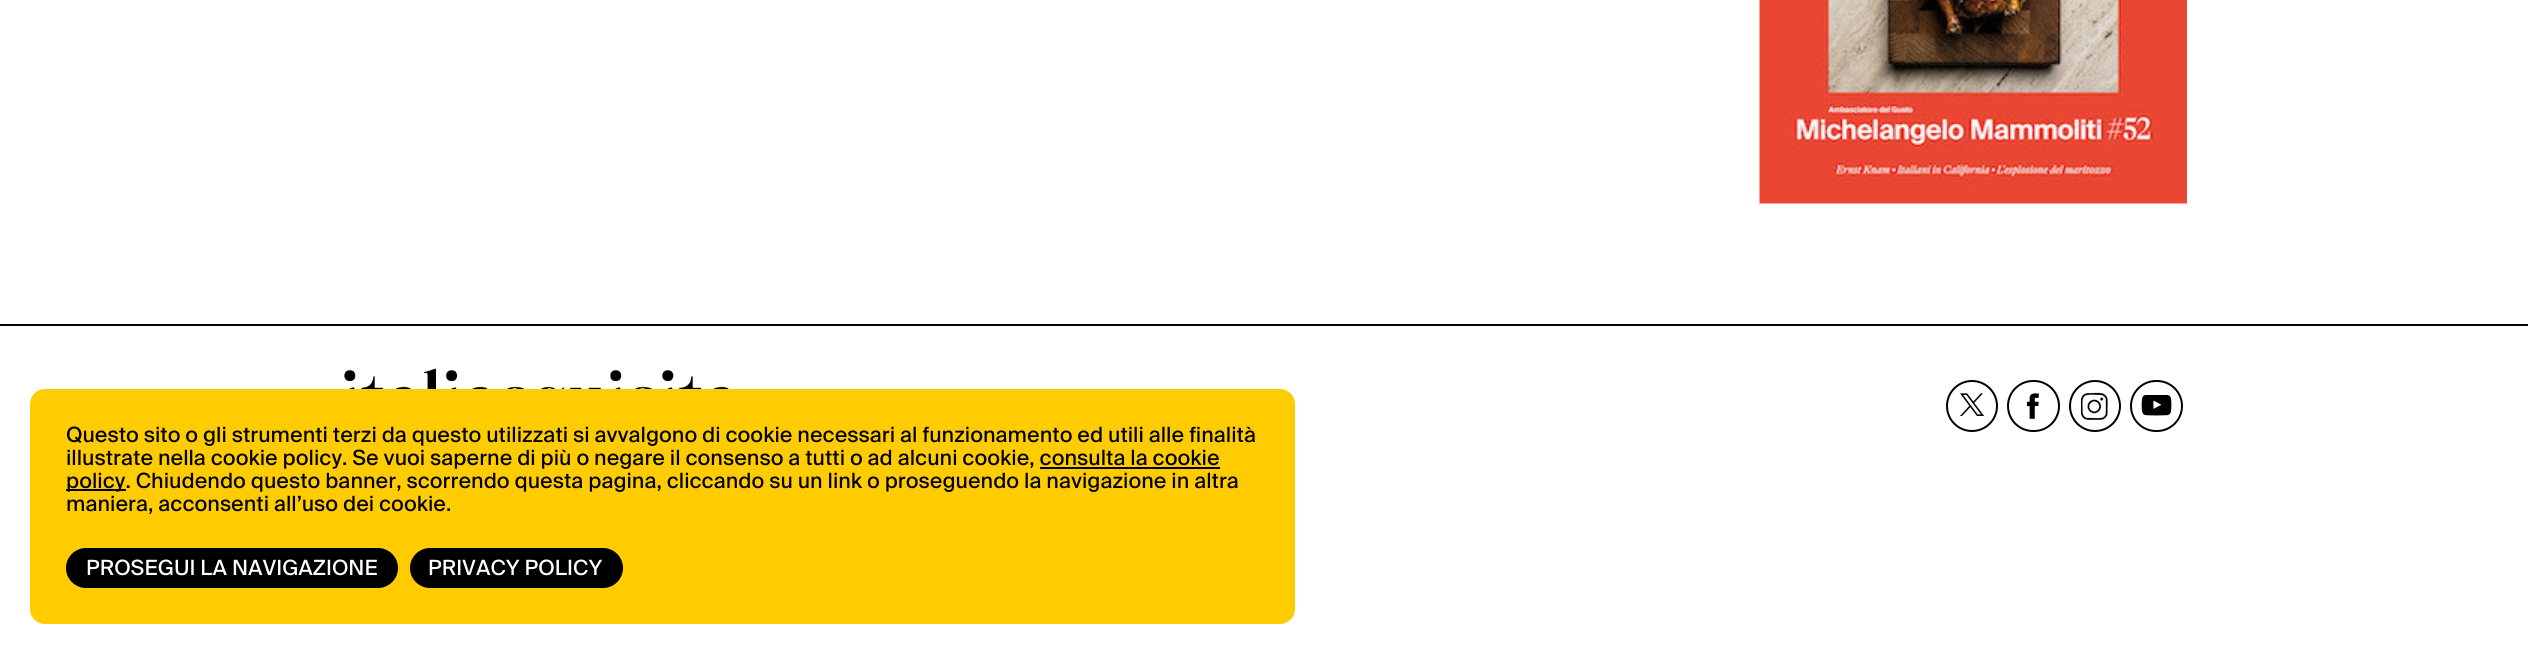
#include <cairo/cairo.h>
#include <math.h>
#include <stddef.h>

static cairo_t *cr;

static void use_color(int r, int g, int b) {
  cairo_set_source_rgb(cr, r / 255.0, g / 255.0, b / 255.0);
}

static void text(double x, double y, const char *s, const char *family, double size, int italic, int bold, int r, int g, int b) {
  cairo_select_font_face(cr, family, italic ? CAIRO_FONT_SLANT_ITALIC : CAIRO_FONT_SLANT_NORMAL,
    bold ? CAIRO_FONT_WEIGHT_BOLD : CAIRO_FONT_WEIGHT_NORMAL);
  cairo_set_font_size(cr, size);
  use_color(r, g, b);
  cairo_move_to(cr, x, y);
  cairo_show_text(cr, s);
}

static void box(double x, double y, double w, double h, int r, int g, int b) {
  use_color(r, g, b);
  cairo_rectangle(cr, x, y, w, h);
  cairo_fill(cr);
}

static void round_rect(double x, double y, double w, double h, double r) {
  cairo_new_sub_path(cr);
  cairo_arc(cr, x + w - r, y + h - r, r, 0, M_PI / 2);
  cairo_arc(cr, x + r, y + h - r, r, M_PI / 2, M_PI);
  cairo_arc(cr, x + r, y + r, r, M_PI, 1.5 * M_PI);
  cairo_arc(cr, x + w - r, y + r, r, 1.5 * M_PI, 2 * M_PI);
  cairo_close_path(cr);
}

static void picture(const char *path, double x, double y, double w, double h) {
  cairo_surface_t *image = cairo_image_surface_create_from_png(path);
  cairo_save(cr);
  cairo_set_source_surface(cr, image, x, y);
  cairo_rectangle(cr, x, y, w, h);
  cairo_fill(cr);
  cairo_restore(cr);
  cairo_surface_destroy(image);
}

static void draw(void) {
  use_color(255, 255, 255);
  cairo_paint(cr);
  picture("img_01.png", 1759, 0, 428, 204);
  box(0, 324, 2528, 2, 0, 0, 0);
  picture("img_02.png", 344, 368, 385, 21);
  cairo_arc(cr, 1972, 406, 25, 0, 2 * M_PI);
  cairo_stroke(cr);
  picture("img_03.png", 1960, 393, 24, 23);
  round_rect(2008, 381, 51, 50, 25);
  cairo_stroke(cr);
  picture("img_04.png", 2027, 393, 12, 26);
  cairo_arc(cr, 2095, 406, 25, 0, 2 * M_PI);
  cairo_stroke(cr);
  picture("img_05.png", 2081, 392, 27, 28);
  round_rect(2131, 381, 51, 50, 25);
  cairo_stroke(cr);
  picture("img_06.png", 2141, 395, 31, 21);
  use_color(255, 204, 2);
  round_rect(30, 389, 1265, 235, 15);
  cairo_fill(cr);
  box(1040, 467, 180, 2, 0, 0, 0);
  box(66, 489, 60, 2, 0, 0, 0);
  round_rect(67, 549, 330, 38, 19);
  cairo_fill_preserve(cr);
  cairo_stroke(cr);
  round_rect(411, 549, 211, 38, 19);
  cairo_fill_preserve(cr);
  cairo_stroke(cr);
  text(66, 442, "Questo sito o gli strumenti terzi da questo utilizzati si avvalgono di cookie necessari al funzionamento ed utili alle finalità", "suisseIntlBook", 21, 0, 0, 0, 0, 0);
  text(66, 465, "illustrate nella cookie policy. Se vuoi saperne di più o negare il consenso a tutti o ad alcuni cookie, consulta la cookie", "suisseIntlBook", 21, 0, 0, 0, 0, 0);
  text(66, 488, "policy. Chiudendo questo banner, scorrendo questa pagina, cliccando su un link o proseguendo la navigazione in altra", "suisseIntlBook", 21, 0, 0, 0, 0, 0);
  text(66, 511, "maniera, acconsenti all’uso dei cookie.", "suisseIntlBook", 21, 0, 0, 0, 0, 0);
  text(86, 575, "PROSEGUI LA NAVIGAZIONE", "suisseIntlBook", 21, 0, 0, 255, 255, 255);
  text(428, 575, "PRIVACY POLICY", "suisseIntlBook", 21, 0, 0, 255, 255, 255);
}

int main(void) {
  cairo_surface_t *surface = cairo_image_surface_create(CAIRO_FORMAT_RGB24, 2528, 654);
  cr = cairo_create(surface);
  cairo_font_options_t *options = cairo_font_options_create();
  cairo_font_options_set_hint_metrics(options, CAIRO_HINT_METRICS_OFF);
  cairo_font_options_set_hint_style(options, CAIRO_HINT_STYLE_NONE);
  cairo_set_font_options(cr, options);
  cairo_set_miter_limit(cr, 4);
  draw();
  cairo_surface_write_to_png(surface, "out.png");
  cairo_font_options_destroy(options);
  cairo_destroy(cr);
  cairo_surface_destroy(surface);
  return 0;
}
